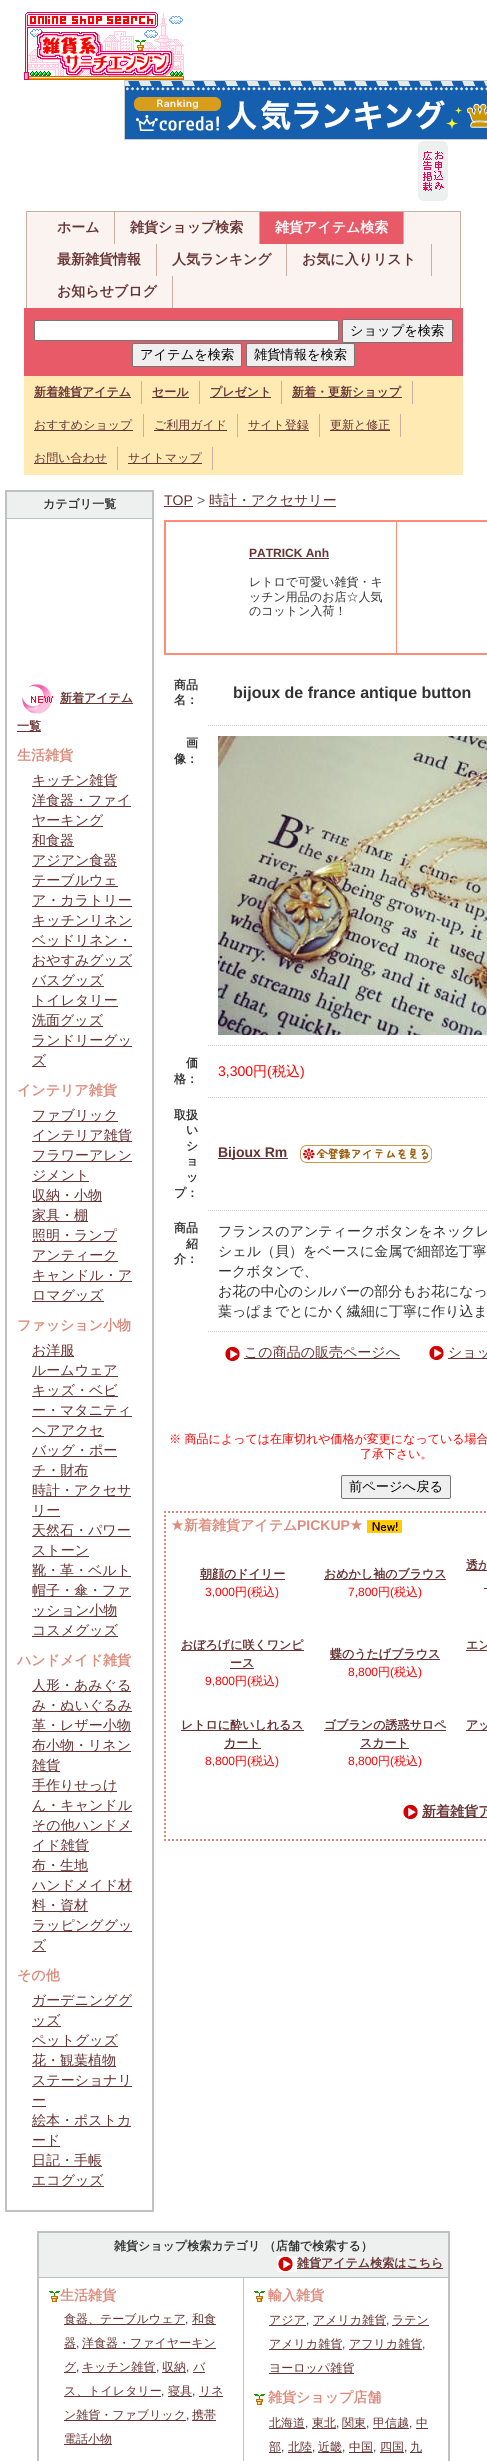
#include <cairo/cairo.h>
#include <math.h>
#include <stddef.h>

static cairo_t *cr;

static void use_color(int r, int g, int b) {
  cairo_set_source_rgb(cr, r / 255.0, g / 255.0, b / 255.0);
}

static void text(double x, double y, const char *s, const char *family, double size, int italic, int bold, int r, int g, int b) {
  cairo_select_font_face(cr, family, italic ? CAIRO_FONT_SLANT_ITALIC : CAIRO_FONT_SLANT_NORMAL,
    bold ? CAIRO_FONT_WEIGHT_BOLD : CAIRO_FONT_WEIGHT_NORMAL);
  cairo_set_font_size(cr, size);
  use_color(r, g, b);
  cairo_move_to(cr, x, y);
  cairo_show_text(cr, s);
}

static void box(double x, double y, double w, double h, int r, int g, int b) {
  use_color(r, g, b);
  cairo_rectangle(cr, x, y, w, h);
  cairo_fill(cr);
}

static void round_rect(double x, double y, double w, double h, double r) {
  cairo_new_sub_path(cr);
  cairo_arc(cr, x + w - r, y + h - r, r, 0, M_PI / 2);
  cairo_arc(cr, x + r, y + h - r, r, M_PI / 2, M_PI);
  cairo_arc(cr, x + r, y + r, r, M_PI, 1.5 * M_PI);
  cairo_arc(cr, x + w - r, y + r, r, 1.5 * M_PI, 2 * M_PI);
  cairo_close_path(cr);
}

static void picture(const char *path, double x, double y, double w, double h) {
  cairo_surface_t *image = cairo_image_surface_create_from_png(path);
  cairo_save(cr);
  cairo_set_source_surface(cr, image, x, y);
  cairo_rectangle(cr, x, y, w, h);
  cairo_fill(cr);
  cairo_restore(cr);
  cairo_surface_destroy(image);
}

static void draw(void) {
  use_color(255, 255, 255);
  cairo_paint(cr);
  picture("img_01.png", 24, 12, 160, 68);
  picture("img_02.png", 124, 80, 363, 60);
  picture("img_03.png", 418, 141, 30, 60);
  box(27, 212, 433, 96, 250, 243, 240);
  box(26, 211, 435, 1, 201, 175, 161);
  box(460, 211, 1, 97, 201, 175, 161);
  box(26, 211, 1, 97, 201, 175, 161);
  box(114, 212, 1, 32, 201, 175, 161);
  box(259, 212, 1, 32, 201, 175, 161);
  box(260, 212, 143, 32, 233, 90, 104);
  box(403, 212, 1, 32, 201, 175, 161);
  box(156, 244, 1, 32, 201, 175, 161);
  box(286, 244, 1, 32, 201, 175, 161);
  box(431, 244, 1, 32, 201, 175, 161);
  box(172, 276, 1, 32, 201, 175, 161);
  box(24, 308, 439, 68, 233, 90, 104);
  use_color(255, 255, 255);
  round_rect(34.5, 320.5, 304, 20, 1.5);
  cairo_fill_preserve(cr);
  use_color(118, 118, 118);
  cairo_set_line_width(cr, 1);
  cairo_stroke(cr);
  use_color(239, 239, 239);
  round_rect(342.5, 319.5, 110, 23, 1.5);
  cairo_fill_preserve(cr);
  use_color(118, 118, 118);
  cairo_stroke(cr);
  use_color(239, 239, 239);
  round_rect(132.5, 343.5, 109, 23, 1.5);
  cairo_fill_preserve(cr);
  use_color(118, 118, 118);
  cairo_stroke(cr);
  use_color(239, 239, 239);
  round_rect(246.5, 343.5, 108, 23, 1.5);
  cairo_fill_preserve(cr);
  use_color(118, 118, 118);
  cairo_stroke(cr);
  box(24, 376, 439, 99, 255, 234, 179);
  box(141, 381, 1, 23, 201, 175, 161);
  box(34, 397, 97, 1, 102, 51, 51);
  box(199, 381, 1, 23, 201, 175, 161);
  box(152, 397, 37, 1, 102, 51, 51);
  box(281, 381, 1, 23, 201, 175, 161);
  box(210, 397, 61, 1, 102, 51, 51);
  box(412, 381, 1, 23, 201, 175, 161);
  box(292, 397, 110, 1, 102, 51, 51);
  box(143, 414, 1, 23, 201, 175, 161);
  box(34, 430, 99, 1, 102, 51, 51);
  box(237, 414, 1, 23, 201, 175, 161);
  box(154, 430, 73, 1, 102, 51, 51);
  box(319, 414, 1, 23, 201, 175, 161);
  box(248, 430, 61, 1, 102, 51, 51);
  box(400, 414, 1, 23, 201, 175, 161);
  box(330, 430, 60, 1, 102, 51, 51);
  box(117, 447, 1, 23, 201, 175, 161);
  box(34, 463, 73, 1, 102, 51, 51);
  box(212, 447, 1, 23, 201, 175, 161);
  box(128, 463, 74, 1, 102, 51, 51);
  box(5, 490, 149, 2, 193, 193, 193);
  box(6, 518, 148, 1, 193, 193, 193);
  box(152, 490, 2, 1722, 193, 193, 193);
  box(5, 2210, 149, 2, 193, 193, 193);
  box(5, 490, 2, 1722, 193, 193, 193);
  box(7, 492, 145, 26, 238, 240, 240);
  picture("img_04.png", 22, 684, 31, 30);
  box(60, 703, 73, 1, 102, 51, 51);
  box(17, 731, 24, 1, 102, 51, 51);
  box(32, 786, 85, 1, 102, 51, 51);
  box(32, 806, 99, 1, 102, 51, 51);
  box(32, 826, 71, 1, 102, 51, 51);
  box(32, 846, 42, 1, 102, 51, 51);
  box(32, 866, 85, 1, 102, 51, 51);
  box(32, 886, 86, 1, 102, 51, 51);
  box(32, 906, 100, 1, 102, 51, 51);
  box(32, 926, 100, 1, 102, 51, 51);
  box(32, 946, 100, 1, 102, 51, 51);
  box(32, 966, 100, 1, 102, 51, 51);
  box(32, 986, 72, 1, 102, 51, 51);
  box(32, 1006, 86, 1, 102, 51, 51);
  box(32, 1026, 71, 1, 102, 51, 51);
  box(32, 1046, 100, 1, 102, 51, 51);
  box(32, 1066, 14, 1, 102, 51, 51);
  box(32, 1121, 86, 1, 102, 51, 51);
  box(32, 1141, 100, 1, 102, 51, 51);
  box(32, 1161, 100, 1, 102, 51, 51);
  box(32, 1181, 57, 1, 102, 51, 51);
  box(32, 1201, 70, 1, 102, 51, 51);
  box(32, 1221, 56, 1, 102, 51, 51);
  box(32, 1241, 85, 1, 102, 51, 51);
  box(32, 1261, 86, 1, 102, 51, 51);
  box(32, 1281, 100, 1, 102, 51, 51);
  box(32, 1301, 72, 1, 102, 51, 51);
  box(32, 1356, 42, 1, 102, 51, 51);
  box(32, 1376, 86, 1, 102, 51, 51);
  box(32, 1396, 86, 1, 102, 51, 51);
  box(32, 1416, 100, 1, 102, 51, 51);
  box(32, 1436, 72, 1, 102, 51, 51);
  box(32, 1456, 85, 1, 102, 51, 51);
  box(32, 1476, 56, 1, 102, 51, 51);
  box(32, 1496, 99, 1, 102, 51, 51);
  box(32, 1516, 28, 1, 102, 51, 51);
  box(32, 1536, 99, 1, 102, 51, 51);
  box(32, 1556, 57, 1, 102, 51, 51);
  box(32, 1576, 99, 1, 102, 51, 51);
  box(32, 1596, 99, 1, 102, 51, 51);
  box(32, 1616, 85, 1, 102, 51, 51);
  box(32, 1636, 86, 1, 102, 51, 51);
  box(32, 1691, 99, 1, 102, 51, 51);
  box(32, 1711, 100, 1, 102, 51, 51);
  box(32, 1731, 99, 1, 102, 51, 51);
  box(32, 1751, 99, 1, 102, 51, 51);
  box(32, 1771, 28, 1, 102, 51, 51);
  box(32, 1791, 85, 1, 102, 51, 51);
  box(32, 1811, 100, 1, 102, 51, 51);
  box(32, 1831, 100, 1, 102, 51, 51);
  box(32, 1851, 57, 1, 102, 51, 51);
  box(32, 1871, 56, 1, 102, 51, 51);
  box(32, 1891, 100, 1, 102, 51, 51);
  box(32, 1911, 56, 1, 102, 51, 51);
  box(32, 1931, 100, 1, 102, 51, 51);
  box(32, 1951, 14, 1, 102, 51, 51);
  box(32, 2006, 100, 1, 102, 51, 51);
  box(32, 2026, 29, 1, 102, 51, 51);
  box(32, 2046, 86, 1, 102, 51, 51);
  box(32, 2066, 84, 1, 102, 51, 51);
  box(32, 2086, 100, 1, 102, 51, 51);
  box(32, 2106, 14, 1, 102, 51, 51);
  box(32, 2126, 99, 1, 102, 51, 51);
  box(32, 2146, 28, 1, 102, 51, 51);
  box(32, 2166, 70, 1, 102, 51, 51);
  box(32, 2186, 72, 1, 102, 51, 51);
  box(164, 506, 29, 1, 102, 51, 51);
  box(209, 506, 127, 1, 102, 51, 51);
  box(396, 521, 1, 133, 255, 141, 118);
  box(164, 520, 323, 2, 255, 141, 118);
  box(164, 653, 323, 2, 255, 141, 118);
  box(164, 520, 2, 135, 255, 141, 118);
  box(249, 558, 80, 1, 102, 51, 51);
  cairo_new_path(cr);
  cairo_move_to(cr, 208, 725.5);
  cairo_line_to(cr, 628, 725.5);
  use_color(204, 204, 204);
  cairo_set_dash(cr, (double[]){1, 1}, 2, 0);
  cairo_stroke(cr);
  cairo_new_path(cr);
  cairo_move_to(cr, 208, 1045.5);
  cairo_line_to(cr, 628, 1045.5);
  cairo_stroke(cr);
  picture("img_05.png", 218, 736, 269, 299);
  cairo_new_path(cr);
  cairo_move_to(cr, 208, 1097.5);
  cairo_line_to(cr, 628, 1097.5);
  cairo_stroke(cr);
  cairo_new_path(cr);
  cairo_move_to(cr, 208, 1210.5);
  cairo_line_to(cr, 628, 1210.5);
  cairo_stroke(cr);
  box(218, 1158, 70, 1, 102, 51, 51);
  picture("img_06.png", 300, 1145, 132, 18);
  cairo_new_path(cr);
  cairo_move_to(cr, 208, 1331.5);
  cairo_line_to(cr, 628, 1331.5);
  use_color(204, 204, 204);
  cairo_stroke(cr);
  picture("img_07.png", 225, 1347, 15, 14);
  box(244, 1358, 156, 1, 102, 51, 51);
  picture("img_07.png", 429, 1346, 15, 14);
  box(448, 1358, 39, 1, 102, 51, 51);
  use_color(239, 239, 239);
  round_rect(341.5, 1475.5, 109, 23, 1.5);
  cairo_fill_preserve(cr);
  use_color(118, 118, 118);
  cairo_set_dash(cr, NULL, 0, 0);
  cairo_stroke(cr);
  cairo_new_path(cr);
  cairo_move_to(cr, 164, 1512);
  cairo_line_to(cr, 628, 1512);
  use_color(220, 141, 126);
  cairo_set_line_width(cr, 2);
  cairo_set_dash(cr, (double[]){2, 2}, 2, 0);
  cairo_stroke(cr);
  cairo_new_path(cr);
  cairo_move_to(cr, 164, 1840);
  cairo_line_to(cr, 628, 1840);
  cairo_stroke(cr);
  cairo_new_path(cr);
  cairo_move_to(cr, 165, 1511);
  cairo_line_to(cr, 165, 1841);
  cairo_stroke(cr);
  picture("img_08.png", 367, 1520, 35, 13);
  box(466, 1570, 21, 1, 102, 51, 51);
  box(484, 1588, 3, 1, 102, 51, 51);
  box(200, 1579, 85, 1, 102, 51, 51);
  box(324, 1579, 122, 1, 102, 51, 51);
  box(181, 1650, 123, 1, 102, 51, 51);
  box(230, 1668, 24, 1, 102, 51, 51);
  box(466, 1650, 21, 1, 102, 51, 51);
  box(330, 1659, 110, 1, 102, 51, 51);
  box(181, 1730, 123, 1, 102, 51, 51);
  box(224, 1748, 37, 1, 102, 51, 51);
  box(324, 1730, 122, 1, 102, 51, 51);
  box(360, 1748, 49, 1, 102, 51, 51);
  box(466, 1730, 21, 1, 102, 51, 51);
  picture("img_07.png", 403, 1805, 15, 14);
  box(422, 1817, 65, 1, 102, 51, 51);
  box(37, 2231, 413, 2, 193, 193, 193);
  box(243, 2277, 1, 184, 193, 193, 193);
  box(37, 2277, 413, 1, 193, 193, 193);
  box(448, 2231, 2, 230, 193, 193, 193);
  box(37, 2231, 2, 230, 193, 193, 193);
  box(39, 2233, 409, 44, 238, 240, 240);
  picture("img_09.png", 277, 2256, 20, 16);
  box(297, 2268, 146, 1, 102, 51, 51);
  picture("img_10.png", 49, 2291, 11, 11);
  box(64, 2324, 121, 1, 102, 51, 51);
  box(192, 2324, 24, 1, 102, 51, 51);
  box(64, 2348, 12, 1, 102, 51, 51);
  box(82, 2348, 134, 1, 102, 51, 51);
  box(64, 2372, 12, 1, 102, 51, 51);
  box(82, 2372, 74, 1, 102, 51, 51);
  box(162, 2372, 24, 1, 102, 51, 51);
  box(193, 2372, 12, 1, 102, 51, 51);
  box(64, 2396, 97, 1, 102, 51, 51);
  box(168, 2396, 24, 1, 102, 51, 51);
  box(199, 2396, 24, 1, 102, 51, 51);
  box(64, 2420, 122, 1, 102, 51, 51);
  box(192, 2420, 24, 1, 102, 51, 51);
  box(64, 2444, 48, 1, 102, 51, 51);
  picture("img_10.png", 254, 2291, 11, 11);
  box(269, 2325, 37, 1, 102, 51, 51);
  box(313, 2325, 73, 1, 102, 51, 51);
  box(392, 2325, 37, 1, 102, 51, 51);
  box(269, 2349, 73, 1, 102, 51, 51);
  box(349, 2349, 73, 1, 102, 51, 51);
  box(269, 2373, 85, 1, 102, 51, 51);
  picture("img_10.png", 254, 2394, 11, 11);
  box(269, 2428, 36, 1, 102, 51, 51);
  box(312, 2428, 24, 1, 102, 51, 51);
  box(342, 2428, 24, 1, 102, 51, 51);
  box(373, 2428, 36, 1, 102, 51, 51);
  box(416, 2428, 12, 1, 102, 51, 51);
  box(269, 2452, 12, 1, 102, 51, 51);
  box(288, 2452, 24, 1, 102, 51, 51);
  box(318, 2452, 24, 1, 102, 51, 51);
  box(349, 2452, 24, 1, 102, 51, 51);
  box(380, 2452, 24, 1, 102, 51, 51);
  box(410, 2452, 12, 1, 102, 51, 51);
  text(57, 232, "ホーム", "WenQuanYi Zen Hei", 14, 0, 1, 102, 51, 51);
  text(130, 232, "雑貨ショップ検索", "WenQuanYi Zen Hei", 14, 0, 1, 102, 51, 51);
  text(275, 232, "雑貨アイテム検索", "WenQuanYi Zen Hei", 14, 0, 1, 255, 255, 255);
  text(57, 264, "最新雑貨情報", "WenQuanYi Zen Hei", 14, 0, 1, 102, 51, 51);
  text(172, 264, "人気ランキング", "WenQuanYi Zen Hei", 14, 0, 1, 102, 51, 51);
  text(302, 264, "お気に入りリスト", "WenQuanYi Zen Hei", 14, 0, 1, 102, 51, 51);
  text(57, 296, "お知らせブログ", "WenQuanYi Zen Hei", 14, 0, 1, 102, 51, 51);
  text(350, 335, "ショップを検索", "WenQuanYi Zen Hei Medium", 13.25, 0, 0, 0, 0, 0);
  text(140, 359, "アイテムを検索", "WenQuanYi Zen Hei Medium", 13.25, 0, 0, 0, 0, 0);
  text(254, 359, "雑貨情報を検索", "WenQuanYi Zen Hei Medium", 13.25, 0, 0, 0, 0, 0);
  text(34, 396, "新着雑貨アイテム", "WenQuanYi Zen Hei", 12, 0, 1, 102, 51, 51);
  text(152, 396, "セール", "WenQuanYi Zen Hei", 12, 0, 1, 102, 51, 51);
  text(210, 396, "プレゼント", "WenQuanYi Zen Hei", 12, 0, 1, 102, 51, 51);
  text(292, 396, "新着・更新ショップ", "WenQuanYi Zen Hei", 12, 0, 1, 102, 51, 51);
  text(34, 429, "おすすめショップ", "WenQuanYi Zen Hei Medium", 12, 0, 0, 102, 51, 51);
  text(154, 429, "ご利用ガイド", "WenQuanYi Zen Hei Medium", 12, 0, 0, 102, 51, 51);
  text(248, 429, "サイト登録", "WenQuanYi Zen Hei Medium", 12, 0, 0, 102, 51, 51);
  text(330, 429, "更新と修正", "WenQuanYi Zen Hei Medium", 12, 0, 0, 102, 51, 51);
  text(34, 462, "お問い合わせ", "WenQuanYi Zen Hei Medium", 12, 0, 0, 102, 51, 51);
  text(128, 462, "サイトマップ", "WenQuanYi Zen Hei Medium", 12, 0, 0, 102, 51, 51);
  text(43, 508, "カテゴリ一覧", "WenQuanYi Zen Hei", 12, 0, 1, 51, 51, 51);
  text(60, 702, "新着アイテム", "WenQuanYi Zen Hei", 12, 0, 1, 102, 51, 51);
  text(17, 730, "一覧", "WenQuanYi Zen Hei", 12, 0, 1, 102, 51, 51);
  text(17, 760, "生活雑貨", "WenQuanYi Zen Hei", 14, 0, 1, 220, 141, 126);
  text(32, 785, "キッチン雑貨", "WenQuanYi Zen Hei Medium", 14, 0, 0, 102, 51, 51);
  text(32, 805, "洋食器・ファイ", "WenQuanYi Zen Hei Medium", 14, 0, 0, 102, 51, 51);
  text(32, 825, "ヤーキング", "WenQuanYi Zen Hei Medium", 14, 0, 0, 102, 51, 51);
  text(32, 845, "和食器", "WenQuanYi Zen Hei Medium", 14, 0, 0, 102, 51, 51);
  text(32, 865, "アジアン食器", "WenQuanYi Zen Hei Medium", 14, 0, 0, 102, 51, 51);
  text(32, 885, "テーブルウェ", "WenQuanYi Zen Hei Medium", 14, 0, 0, 102, 51, 51);
  text(32, 905, "ア・カラトリー", "WenQuanYi Zen Hei Medium", 14, 0, 0, 102, 51, 51);
  text(32, 925, "キッチンリネン", "WenQuanYi Zen Hei Medium", 14, 0, 0, 102, 51, 51);
  text(32, 945, "ベッドリネン・", "WenQuanYi Zen Hei Medium", 14, 0, 0, 102, 51, 51);
  text(32, 965, "おやすみグッズ", "WenQuanYi Zen Hei Medium", 14, 0, 0, 102, 51, 51);
  text(32, 985, "バスグッズ", "WenQuanYi Zen Hei Medium", 14, 0, 0, 102, 51, 51);
  text(32, 1005, "トイレタリー", "WenQuanYi Zen Hei Medium", 14, 0, 0, 102, 51, 51);
  text(32, 1025, "洗面グッズ", "WenQuanYi Zen Hei Medium", 14, 0, 0, 102, 51, 51);
  text(32, 1045, "ランドリーグッ", "WenQuanYi Zen Hei Medium", 14, 0, 0, 102, 51, 51);
  text(32, 1065, "ズ", "WenQuanYi Zen Hei Medium", 14, 0, 0, 102, 51, 51);
  text(17, 1095, "インテリア雑貨", "WenQuanYi Zen Hei", 14, 0, 1, 220, 141, 126);
  text(32, 1120, "ファブリック", "WenQuanYi Zen Hei Medium", 14, 0, 0, 102, 51, 51);
  text(32, 1140, "インテリア雑貨", "WenQuanYi Zen Hei Medium", 14, 0, 0, 102, 51, 51);
  text(32, 1160, "フラワーアレン", "WenQuanYi Zen Hei Medium", 14, 0, 0, 102, 51, 51);
  text(32, 1180, "ジメント", "WenQuanYi Zen Hei Medium", 14, 0, 0, 102, 51, 51);
  text(32, 1200, "収納・小物", "WenQuanYi Zen Hei Medium", 14, 0, 0, 102, 51, 51);
  text(32, 1220, "家具・棚", "WenQuanYi Zen Hei Medium", 14, 0, 0, 102, 51, 51);
  text(32, 1240, "照明・ランプ", "WenQuanYi Zen Hei Medium", 14, 0, 0, 102, 51, 51);
  text(32, 1260, "アンティーク", "WenQuanYi Zen Hei Medium", 14, 0, 0, 102, 51, 51);
  text(32, 1280, "キャンドル・ア", "WenQuanYi Zen Hei Medium", 14, 0, 0, 102, 51, 51);
  text(32, 1300, "ロマグッズ", "WenQuanYi Zen Hei Medium", 14, 0, 0, 102, 51, 51);
  text(17, 1330, "ファッション小物", "WenQuanYi Zen Hei", 14, 0, 1, 220, 141, 126);
  text(32, 1355, "お洋服", "WenQuanYi Zen Hei Medium", 14, 0, 0, 102, 51, 51);
  text(32, 1375, "ルームウェア", "WenQuanYi Zen Hei Medium", 14, 0, 0, 102, 51, 51);
  text(32, 1395, "キッズ・ベビ", "WenQuanYi Zen Hei Medium", 14, 0, 0, 102, 51, 51);
  text(32, 1415, "ー・マタニティ", "WenQuanYi Zen Hei Medium", 14, 0, 0, 102, 51, 51);
  text(32, 1435, "ヘアアクセ", "WenQuanYi Zen Hei Medium", 14, 0, 0, 102, 51, 51);
  text(32, 1455, "バッグ・ポー", "WenQuanYi Zen Hei Medium", 14, 0, 0, 102, 51, 51);
  text(32, 1475, "チ・財布", "WenQuanYi Zen Hei Medium", 14, 0, 0, 102, 51, 51);
  text(32, 1495, "時計・アクセサ", "WenQuanYi Zen Hei Medium", 14, 0, 0, 102, 51, 51);
  text(32, 1515, "リー", "WenQuanYi Zen Hei Medium", 14, 0, 0, 102, 51, 51);
  text(32, 1535, "天然石・パワー", "WenQuanYi Zen Hei Medium", 14, 0, 0, 102, 51, 51);
  text(32, 1555, "ストーン", "WenQuanYi Zen Hei Medium", 14, 0, 0, 102, 51, 51);
  text(32, 1575, "靴・革・ベルト", "WenQuanYi Zen Hei Medium", 14, 0, 0, 102, 51, 51);
  text(32, 1595, "帽子・傘・ファ", "WenQuanYi Zen Hei Medium", 14, 0, 0, 102, 51, 51);
  text(32, 1615, "ッション小物", "WenQuanYi Zen Hei Medium", 14, 0, 0, 102, 51, 51);
  text(32, 1635, "コスメグッズ", "WenQuanYi Zen Hei Medium", 14, 0, 0, 102, 51, 51);
  text(17, 1665, "ハンドメイド雑貨", "WenQuanYi Zen Hei", 14, 0, 1, 220, 141, 126);
  text(32, 1690, "人形・あみぐる", "WenQuanYi Zen Hei Medium", 14, 0, 0, 102, 51, 51);
  text(32, 1710, "み・ぬいぐるみ", "WenQuanYi Zen Hei Medium", 14, 0, 0, 102, 51, 51);
  text(32, 1730, "革・レザー小物", "WenQuanYi Zen Hei Medium", 14, 0, 0, 102, 51, 51);
  text(32, 1750, "布小物・リネン", "WenQuanYi Zen Hei Medium", 14, 0, 0, 102, 51, 51);
  text(32, 1770, "雑貨", "WenQuanYi Zen Hei Medium", 14, 0, 0, 102, 51, 51);
  text(32, 1790, "手作りせっけ", "WenQuanYi Zen Hei Medium", 14, 0, 0, 102, 51, 51);
  text(32, 1810, "ん・キャンドル", "WenQuanYi Zen Hei Medium", 14, 0, 0, 102, 51, 51);
  text(32, 1830, "その他ハンドメ", "WenQuanYi Zen Hei Medium", 14, 0, 0, 102, 51, 51);
  text(32, 1850, "イド雑貨", "WenQuanYi Zen Hei Medium", 14, 0, 0, 102, 51, 51);
  text(32, 1870, "布・生地", "WenQuanYi Zen Hei Medium", 14, 0, 0, 102, 51, 51);
  text(32, 1890, "ハンドメイド材", "WenQuanYi Zen Hei Medium", 14, 0, 0, 102, 51, 51);
  text(32, 1910, "料・資材", "WenQuanYi Zen Hei Medium", 14, 0, 0, 102, 51, 51);
  text(32, 1930, "ラッピンググッ", "WenQuanYi Zen Hei Medium", 14, 0, 0, 102, 51, 51);
  text(32, 1950, "ズ", "WenQuanYi Zen Hei Medium", 14, 0, 0, 102, 51, 51);
  text(17, 1980, "その他", "WenQuanYi Zen Hei", 14, 0, 1, 220, 141, 126);
  text(32, 2005, "ガーデニンググ", "WenQuanYi Zen Hei Medium", 14, 0, 0, 102, 51, 51);
  text(32, 2025, "ッズ", "WenQuanYi Zen Hei Medium", 14, 0, 0, 102, 51, 51);
  text(32, 2045, "ペットグッズ", "WenQuanYi Zen Hei Medium", 14, 0, 0, 102, 51, 51);
  text(32, 2065, "花・観葉植物", "WenQuanYi Zen Hei Medium", 14, 0, 0, 102, 51, 51);
  text(32, 2085, "ステーショナリ", "WenQuanYi Zen Hei Medium", 14, 0, 0, 102, 51, 51);
  text(32, 2105, "ー", "WenQuanYi Zen Hei Medium", 14, 0, 0, 102, 51, 51);
  text(32, 2125, "絵本・ポストカ", "WenQuanYi Zen Hei Medium", 14, 0, 0, 102, 51, 51);
  text(32, 2145, "ード", "WenQuanYi Zen Hei Medium", 14, 0, 0, 102, 51, 51);
  text(32, 2165, "日記・手帳", "WenQuanYi Zen Hei Medium", 14, 0, 0, 102, 51, 51);
  text(32, 2185, "エコグッズ", "WenQuanYi Zen Hei Medium", 14, 0, 0, 102, 51, 51);
  text(164, 505, "TOP", "Liberation Sans", 14, 0, 0, 102, 51, 51);
  text(197, 505, ">", "Liberation Sans", 14, 0, 0, 102, 102, 102);
  text(209, 505, "時計・アクセサリー", "WenQuanYi Zen Hei Medium", 14, 0, 0, 102, 51, 51);
  text(249, 557, "PATRICK Anh", "Liberation Sans", 12, 0, 1, 102, 51, 51);
  text(249, 586, "レトロで可愛い雑貨・キ", "WenQuanYi Zen Hei Medium", 12, 0, 0, 51, 51, 51);
  text(249, 601, "ッチン用品のお店☆人気", "WenQuanYi Zen Hei Medium", 12, 0, 0, 51, 51, 51);
  text(249, 615, "のコットン入荷！", "WenQuanYi Zen Hei Medium", 12, 0, 0, 51, 51, 51);
  text(174, 689, "商品", "WenQuanYi Zen Hei", 12, 0, 1, 51, 51, 51);
  text(174, 704, "名：", "WenQuanYi Zen Hei", 12, 0, 1, 51, 51, 51);
  text(233, 698, "bijoux de france antique button", "Liberation Sans", 16, 0, 1, 51, 51, 51);
  text(186, 747, "画", "WenQuanYi Zen Hei", 12, 0, 1, 51, 51, 51);
  text(174, 763, "像：", "WenQuanYi Zen Hei", 12, 0, 1, 51, 51, 51);
  text(186, 1067, "価", "WenQuanYi Zen Hei", 12, 0, 1, 51, 51, 51);
  text(174, 1083, "格：", "WenQuanYi Zen Hei", 12, 0, 1, 51, 51, 51);
  text(218, 1076, "3,300", "Liberation Sans", 14, 0, 0, 255, 0, 0);
  text(253, 1076, "円", "WenQuanYi Zen Hei Medium", 14, 0, 0, 255, 0, 0);
  text(267, 1076, "(", "Liberation Sans", 14, 0, 0, 255, 0, 0);
  text(272, 1076, "税込", "WenQuanYi Zen Hei Medium", 14, 0, 0, 255, 0, 0);
  text(300, 1076, ")", "Liberation Sans", 14, 0, 0, 255, 0, 0);
  text(174, 1119, "取扱", "WenQuanYi Zen Hei", 12, 0, 1, 51, 51, 51);
  text(186, 1134, "い", "WenQuanYi Zen Hei", 12, 0, 1, 51, 51, 51);
  text(186, 1150, "シ", "WenQuanYi Zen Hei", 12, 0, 1, 51, 51, 51);
  text(186, 1165, "ョ", "WenQuanYi Zen Hei", 12, 0, 1, 51, 51, 51);
  text(186, 1181, "ッ", "WenQuanYi Zen Hei", 12, 0, 1, 51, 51, 51);
  text(174, 1197, "プ：", "WenQuanYi Zen Hei", 12, 0, 1, 51, 51, 51);
  text(218, 1157, "Bijoux Rm", "Liberation Sans", 14, 0, 1, 102, 51, 51);
  text(174, 1232, "商品", "WenQuanYi Zen Hei", 12, 0, 1, 51, 51, 51);
  text(186, 1248, "紹", "WenQuanYi Zen Hei", 12, 0, 1, 51, 51, 51);
  text(174, 1263, "介：", "WenQuanYi Zen Hei", 12, 0, 1, 51, 51, 51);
  text(218, 1236, "フランスのアンティークボタンをネックレ", "WenQuanYi Zen Hei Medium", 14, 0, 0, 51, 51, 51);
  text(218, 1256, "シェル（貝）をベースに金属で細部迄丁寧", "WenQuanYi Zen Hei Medium", 14, 0, 0, 51, 51, 51);
  text(218, 1276, "ークボタンで、", "WenQuanYi Zen Hei Medium", 14, 0, 0, 51, 51, 51);
  text(218, 1296, "お花の中心のシルバーの部分もお花になっ", "WenQuanYi Zen Hei Medium", 14, 0, 0, 51, 51, 51);
  text(218, 1316, "葉っぱまでとにかく繊細に丁寧に作り込ま", "WenQuanYi Zen Hei Medium", 14, 0, 0, 51, 51, 51);
  text(244, 1357, "この商品の販売ページへ", "WenQuanYi Zen Hei Medium", 14, 0, 0, 102, 51, 51);
  text(448, 1357, "ショッ", "WenQuanYi Zen Hei Medium", 14, 0, 0, 102, 51, 51);
  text(169, 1443, "※ 商品によっては在庫切れや価格が変更になっている場合", "WenQuanYi Zen Hei Medium", 12, 0, 0, 255, 0, 0);
  text(360, 1458, "了承下さい。", "WenQuanYi Zen Hei Medium", 12, 0, 0, 255, 0, 0);
  text(349, 1491, "前ページへ戻る", "WenQuanYi Zen Hei Medium", 13.25, 0, 0, 0, 0, 0);
  text(171, 1530, "★", "DejaVu Sans", 14, 0, 1, 220, 141, 126);
  text(184, 1530, "新着雑貨アイテム", "WenQuanYi Zen Hei", 14, 0, 1, 220, 141, 126);
  text(297, 1530, "PICKUP", "Liberation Sans", 14, 0, 1, 220, 141, 126);
  text(350, 1530, "★", "DejaVu Sans", 14, 0, 1, 220, 141, 126);
  text(466, 1569, "透か", "WenQuanYi Zen Hei", 12, 0, 1, 102, 51, 51);
  text(200, 1578, "朝顔のドイリー", "WenQuanYi Zen Hei", 12, 0, 1, 102, 51, 51);
  text(205, 1596, "3,000", "Liberation Sans", 12, 0, 0, 255, 0, 0);
  text(235, 1596, "円", "WenQuanYi Zen Hei Medium", 12, 0, 0, 255, 0, 0);
  text(247, 1596, "(", "Liberation Sans", 12, 0, 0, 255, 0, 0);
  text(251, 1596, "税込", "WenQuanYi Zen Hei Medium", 12, 0, 0, 255, 0, 0);
  text(275, 1596, ")", "Liberation Sans", 12, 0, 0, 255, 0, 0);
  text(324, 1578, "おめかし袖のブラウス", "WenQuanYi Zen Hei", 12, 0, 1, 102, 51, 51);
  text(348, 1596, "7,800", "Liberation Sans", 12, 0, 0, 255, 0, 0);
  text(378, 1596, "円", "WenQuanYi Zen Hei Medium", 12, 0, 0, 255, 0, 0);
  text(390, 1596, "(", "Liberation Sans", 12, 0, 0, 255, 0, 0);
  text(394, 1596, "税込", "WenQuanYi Zen Hei Medium", 12, 0, 0, 255, 0, 0);
  text(418, 1596, ")", "Liberation Sans", 12, 0, 0, 255, 0, 0);
  text(181, 1649, "おぼろげに咲くワンピ", "WenQuanYi Zen Hei", 12, 0, 1, 102, 51, 51);
  text(230, 1667, "ース", "WenQuanYi Zen Hei", 12, 0, 1, 102, 51, 51);
  text(205, 1685, "9,800", "Liberation Sans", 12, 0, 0, 255, 0, 0);
  text(235, 1685, "円", "WenQuanYi Zen Hei Medium", 12, 0, 0, 255, 0, 0);
  text(247, 1685, "(", "Liberation Sans", 12, 0, 0, 255, 0, 0);
  text(251, 1685, "税込", "WenQuanYi Zen Hei Medium", 12, 0, 0, 255, 0, 0);
  text(275, 1685, ")", "Liberation Sans", 12, 0, 0, 255, 0, 0);
  text(466, 1649, "エン", "WenQuanYi Zen Hei", 12, 0, 1, 102, 51, 51);
  text(330, 1658, "蝶のうたげブラウス", "WenQuanYi Zen Hei", 12, 0, 1, 102, 51, 51);
  text(348, 1676, "8,800", "Liberation Sans", 12, 0, 0, 255, 0, 0);
  text(378, 1676, "円", "WenQuanYi Zen Hei Medium", 12, 0, 0, 255, 0, 0);
  text(390, 1676, "(", "Liberation Sans", 12, 0, 0, 255, 0, 0);
  text(394, 1676, "税込", "WenQuanYi Zen Hei Medium", 12, 0, 0, 255, 0, 0);
  text(418, 1676, ")", "Liberation Sans", 12, 0, 0, 255, 0, 0);
  text(181, 1729, "レトロに酔いしれるス", "WenQuanYi Zen Hei", 12, 0, 1, 102, 51, 51);
  text(224, 1747, "カート", "WenQuanYi Zen Hei", 12, 0, 1, 102, 51, 51);
  text(205, 1765, "8,800", "Liberation Sans", 12, 0, 0, 255, 0, 0);
  text(235, 1765, "円", "WenQuanYi Zen Hei Medium", 12, 0, 0, 255, 0, 0);
  text(247, 1765, "(", "Liberation Sans", 12, 0, 0, 255, 0, 0);
  text(251, 1765, "税込", "WenQuanYi Zen Hei Medium", 12, 0, 0, 255, 0, 0);
  text(275, 1765, ")", "Liberation Sans", 12, 0, 0, 255, 0, 0);
  text(324, 1729, "ゴブランの誘惑サロペ", "WenQuanYi Zen Hei", 12, 0, 1, 102, 51, 51);
  text(360, 1747, "スカート", "WenQuanYi Zen Hei", 12, 0, 1, 102, 51, 51);
  text(348, 1765, "8,800", "Liberation Sans", 12, 0, 0, 255, 0, 0);
  text(378, 1765, "円", "WenQuanYi Zen Hei Medium", 12, 0, 0, 255, 0, 0);
  text(390, 1765, "(", "Liberation Sans", 12, 0, 0, 255, 0, 0);
  text(394, 1765, "税込", "WenQuanYi Zen Hei Medium", 12, 0, 0, 255, 0, 0);
  text(418, 1765, ")", "Liberation Sans", 12, 0, 0, 255, 0, 0);
  text(466, 1729, "アッ", "WenQuanYi Zen Hei", 12, 0, 1, 102, 51, 51);
  text(422, 1816, "新着雑貨ア", "WenQuanYi Zen Hei", 14, 0, 1, 102, 51, 51);
  text(114, 2250, "雑貨ショップ検索カテゴリ （店舗で検索する）", "WenQuanYi Zen Hei", 12, 0, 1, 51, 51, 51);
  text(297, 2267, "雑貨アイテム検索はこちら", "WenQuanYi Zen Hei", 12, 0, 1, 102, 51, 51);
  text(60, 2300, "生活雑貨", "WenQuanYi Zen Hei", 14, 0, 1, 220, 141, 126);
  text(64, 2323, "食器、テーブルウェア", "WenQuanYi Zen Hei Medium", 12, 0, 0, 102, 51, 51);
  text(185, 2323, ",", "Liberation Sans", 12, 0, 0, 51, 51, 51);
  text(192, 2323, "和食", "WenQuanYi Zen Hei Medium", 12, 0, 0, 102, 51, 51);
  text(64, 2347, "器", "WenQuanYi Zen Hei Medium", 12, 0, 0, 102, 51, 51);
  text(76, 2347, ",", "Liberation Sans", 12, 0, 0, 51, 51, 51);
  text(82, 2347, "洋食器・ファイヤーキン", "WenQuanYi Zen Hei Medium", 12, 0, 0, 102, 51, 51);
  text(64, 2371, "グ", "WenQuanYi Zen Hei Medium", 12, 0, 0, 102, 51, 51);
  text(76, 2371, ",", "Liberation Sans", 12, 0, 0, 51, 51, 51);
  text(82, 2371, "キッチン雑貨", "WenQuanYi Zen Hei Medium", 12, 0, 0, 102, 51, 51);
  text(156, 2371, ",", "Liberation Sans", 12, 0, 0, 51, 51, 51);
  text(162, 2371, "収納", "WenQuanYi Zen Hei Medium", 12, 0, 0, 102, 51, 51);
  text(186, 2371, ",", "Liberation Sans", 12, 0, 0, 51, 51, 51);
  text(193, 2371, "バ", "WenQuanYi Zen Hei Medium", 12, 0, 0, 102, 51, 51);
  text(64, 2395, "ス、トイレタリー", "WenQuanYi Zen Hei Medium", 12, 0, 0, 102, 51, 51);
  text(161, 2395, ",", "Liberation Sans", 12, 0, 0, 51, 51, 51);
  text(168, 2395, "寝具", "WenQuanYi Zen Hei Medium", 12, 0, 0, 102, 51, 51);
  text(192, 2395, ",", "Liberation Sans", 12, 0, 0, 51, 51, 51);
  text(199, 2395, "リネ", "WenQuanYi Zen Hei Medium", 12, 0, 0, 102, 51, 51);
  text(64, 2419, "ン雑貨・ファブリック", "WenQuanYi Zen Hei Medium", 12, 0, 0, 102, 51, 51);
  text(186, 2419, ",", "Liberation Sans", 12, 0, 0, 51, 51, 51);
  text(192, 2419, "携帯", "WenQuanYi Zen Hei Medium", 12, 0, 0, 102, 51, 51);
  text(64, 2443, "電話小物", "WenQuanYi Zen Hei Medium", 12, 0, 0, 102, 51, 51);
  text(268, 2300, "輸入雑貨", "WenQuanYi Zen Hei", 14, 0, 1, 220, 141, 126);
  text(269, 2324, "アジア", "WenQuanYi Zen Hei Medium", 12, 0, 0, 102, 51, 51);
  text(306, 2324, ",", "Liberation Sans", 12, 0, 0, 51, 51, 51);
  text(313, 2324, "アメリカ雑貨", "WenQuanYi Zen Hei Medium", 12, 0, 0, 102, 51, 51);
  text(386, 2324, ",", "Liberation Sans", 12, 0, 0, 51, 51, 51);
  text(392, 2324, "ラテン", "WenQuanYi Zen Hei Medium", 12, 0, 0, 102, 51, 51);
  text(269, 2348, "アメリカ雑貨", "WenQuanYi Zen Hei Medium", 12, 0, 0, 102, 51, 51);
  text(342, 2348, ",", "Liberation Sans", 12, 0, 0, 51, 51, 51);
  text(349, 2348, "アフリカ雑貨", "WenQuanYi Zen Hei Medium", 12, 0, 0, 102, 51, 51);
  text(422, 2348, ",", "Liberation Sans", 12, 0, 0, 51, 51, 51);
  text(269, 2372, "ヨーロッパ雑貨", "WenQuanYi Zen Hei Medium", 12, 0, 0, 102, 51, 51);
  text(268, 2402, "雑貨ショップ店舗", "WenQuanYi Zen Hei", 14, 0, 1, 220, 141, 126);
  text(269, 2427, "北海道", "WenQuanYi Zen Hei Medium", 12, 0, 0, 102, 51, 51);
  text(305, 2427, ",", "Liberation Sans", 12, 0, 0, 51, 51, 51);
  text(312, 2427, "東北", "WenQuanYi Zen Hei Medium", 12, 0, 0, 102, 51, 51);
  text(336, 2427, ",", "Liberation Sans", 12, 0, 0, 51, 51, 51);
  text(342, 2427, "関東", "WenQuanYi Zen Hei Medium", 12, 0, 0, 102, 51, 51);
  text(366, 2427, ",", "Liberation Sans", 12, 0, 0, 51, 51, 51);
  text(373, 2427, "甲信越", "WenQuanYi Zen Hei Medium", 12, 0, 0, 102, 51, 51);
  text(409, 2427, ",", "Liberation Sans", 12, 0, 0, 51, 51, 51);
  text(416, 2427, "中", "WenQuanYi Zen Hei Medium", 12, 0, 0, 102, 51, 51);
  text(269, 2451, "部", "WenQuanYi Zen Hei Medium", 12, 0, 0, 102, 51, 51);
  text(281, 2451, ",", "Liberation Sans", 12, 0, 0, 51, 51, 51);
  text(288, 2451, "北陸", "WenQuanYi Zen Hei Medium", 12, 0, 0, 102, 51, 51);
  text(312, 2451, ",", "Liberation Sans", 12, 0, 0, 51, 51, 51);
  text(318, 2451, "近畿", "WenQuanYi Zen Hei Medium", 12, 0, 0, 102, 51, 51);
  text(342, 2451, ",", "Liberation Sans", 12, 0, 0, 51, 51, 51);
  text(349, 2451, "中国", "WenQuanYi Zen Hei Medium", 12, 0, 0, 102, 51, 51);
  text(373, 2451, ",", "Liberation Sans", 12, 0, 0, 51, 51, 51);
  text(380, 2451, "四国", "WenQuanYi Zen Hei Medium", 12, 0, 0, 102, 51, 51);
  text(404, 2451, ",", "Liberation Sans", 12, 0, 0, 51, 51, 51);
  text(410, 2451, "九", "WenQuanYi Zen Hei Medium", 12, 0, 0, 102, 51, 51);
}

int main(void) {
  cairo_surface_t *surface = cairo_image_surface_create(CAIRO_FORMAT_RGB24, 487, 2461);
  cr = cairo_create(surface);
  cairo_font_options_t *options = cairo_font_options_create();
  cairo_font_options_set_hint_metrics(options, CAIRO_HINT_METRICS_OFF);
  cairo_font_options_set_hint_style(options, CAIRO_HINT_STYLE_NONE);
  cairo_set_font_options(cr, options);
  cairo_set_miter_limit(cr, 4);
  draw();
  cairo_surface_write_to_png(surface, "out.png");
  cairo_font_options_destroy(options);
  cairo_destroy(cr);
  cairo_surface_destroy(surface);
  return 0;
}
